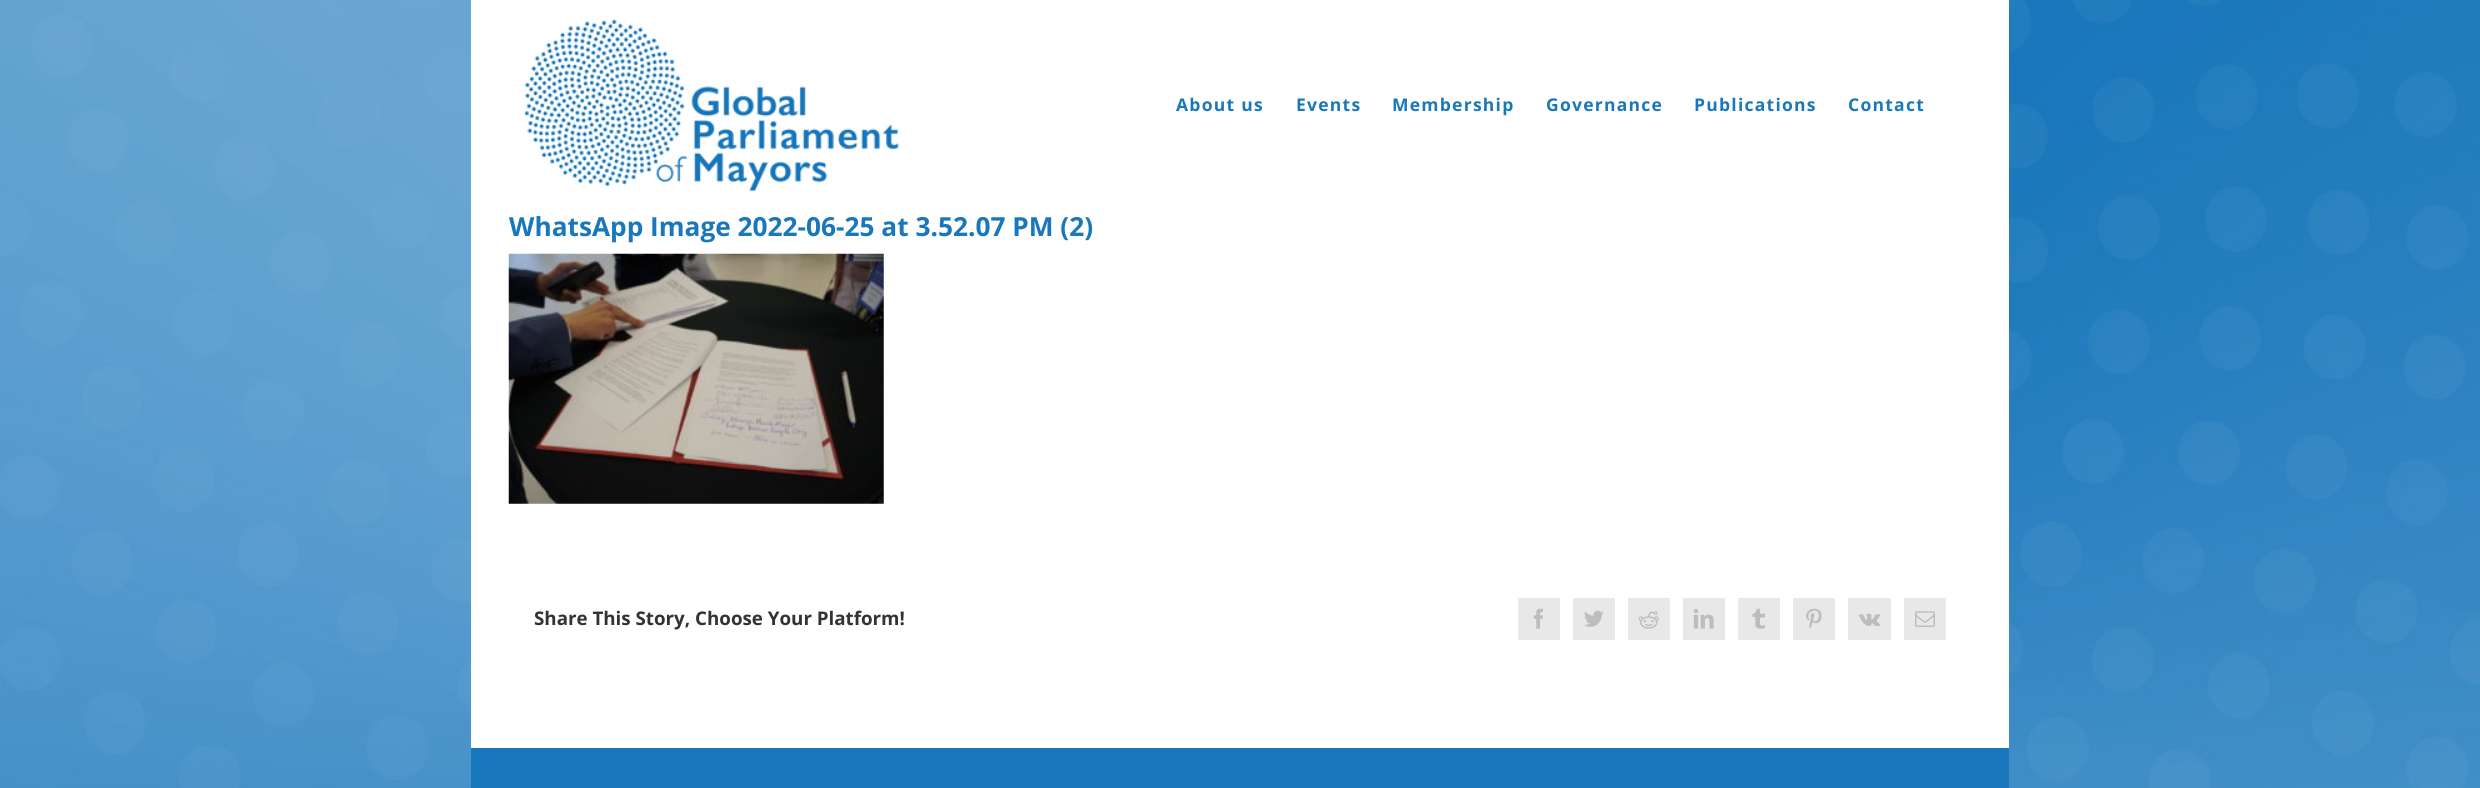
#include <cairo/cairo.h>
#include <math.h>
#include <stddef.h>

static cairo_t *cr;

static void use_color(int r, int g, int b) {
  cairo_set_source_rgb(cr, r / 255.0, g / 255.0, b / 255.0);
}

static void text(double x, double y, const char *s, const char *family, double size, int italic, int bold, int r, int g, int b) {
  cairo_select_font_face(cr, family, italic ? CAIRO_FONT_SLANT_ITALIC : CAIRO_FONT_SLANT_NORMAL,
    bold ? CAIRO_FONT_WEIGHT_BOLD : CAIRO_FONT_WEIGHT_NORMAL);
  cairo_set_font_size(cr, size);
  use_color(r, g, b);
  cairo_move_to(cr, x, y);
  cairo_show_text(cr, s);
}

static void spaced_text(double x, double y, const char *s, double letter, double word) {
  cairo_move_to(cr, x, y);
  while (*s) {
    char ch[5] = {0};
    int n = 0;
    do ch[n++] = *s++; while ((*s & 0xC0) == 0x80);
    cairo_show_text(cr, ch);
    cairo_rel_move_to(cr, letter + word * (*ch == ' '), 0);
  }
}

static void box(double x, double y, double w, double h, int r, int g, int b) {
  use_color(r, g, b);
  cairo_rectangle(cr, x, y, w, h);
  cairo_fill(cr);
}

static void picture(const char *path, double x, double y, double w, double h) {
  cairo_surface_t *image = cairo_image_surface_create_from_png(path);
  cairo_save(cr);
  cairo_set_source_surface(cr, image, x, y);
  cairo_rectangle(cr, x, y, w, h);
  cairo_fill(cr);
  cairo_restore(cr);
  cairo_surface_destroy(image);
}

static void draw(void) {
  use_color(255, 255, 255);
  cairo_paint(cr);
  picture("img_01.png", 0, 0, 2480, 788);
  box(471, 0, 1538, 748, 255, 255, 255);
  picture("img_02.png", 524, 19, 375, 173);
  picture("img_03.png", 508, 253, 376, 251);
  box(1518, 598, 42, 42, 232, 232, 232);
  picture("img_04.png", 1533, 608, 10, 21);
  box(1573, 598, 42, 42, 232, 232, 232);
  picture("img_05.png", 1584, 610, 20, 17);
  box(1628, 598, 42, 42, 232, 232, 232);
  picture("img_06.png", 1638, 611, 21, 18);
  box(1683, 598, 42, 42, 232, 232, 232);
  picture("img_07.png", 1693, 609, 21, 20);
  box(1738, 598, 42, 42, 232, 232, 232);
  picture("img_08.png", 1752, 608, 13, 21);
  box(1793, 598, 42, 42, 232, 232, 232);
  picture("img_09.png", 1806, 608, 16, 21);
  box(1848, 598, 43, 42, 232, 232, 232);
  picture("img_10.png", 1858, 613, 22, 13);
  box(1904, 598, 42, 42, 232, 232, 232);
  picture("img_11.png", 1915, 611, 20, 16);
  box(471, 748, 1538, 40, 25, 119, 187);
  cairo_select_font_face(cr, "Open Sans", CAIRO_FONT_SLANT_NORMAL, CAIRO_FONT_WEIGHT_BOLD);
  cairo_set_font_size(cr, 17.5);
  spaced_text(1176, 111, "About us", 1.25, 0);
  spaced_text(1296, 111, "Events", 1.25, 0);
  spaced_text(1392, 111, "Membership", 1.25, 0);
  spaced_text(1546, 111, "Governance", 1.25, 0);
  spaced_text(1694, 111, "Publications", 1.25, 0);
  spaced_text(1848, 111, "Contact", 1.25, 0);
  text(509, 236, "WhatsApp Image 2022-06-25 at 3.52.07 PM (2)", "Open Sans", 26.25, 0, 1, 25, 119, 187);
  text(534, 625, "Share This Story, Choose Your Platform!", "Open Sans", 18.75, 0, 1, 51, 51, 51);
}

int main(void) {
  cairo_surface_t *surface = cairo_image_surface_create(CAIRO_FORMAT_RGB24, 2480, 788);
  cr = cairo_create(surface);
  cairo_font_options_t *options = cairo_font_options_create();
  cairo_font_options_set_hint_metrics(options, CAIRO_HINT_METRICS_OFF);
  cairo_font_options_set_hint_style(options, CAIRO_HINT_STYLE_NONE);
  cairo_set_font_options(cr, options);
  cairo_set_miter_limit(cr, 4);
  draw();
  cairo_surface_write_to_png(surface, "out.png");
  cairo_font_options_destroy(options);
  cairo_destroy(cr);
  cairo_surface_destroy(surface);
  return 0;
}
